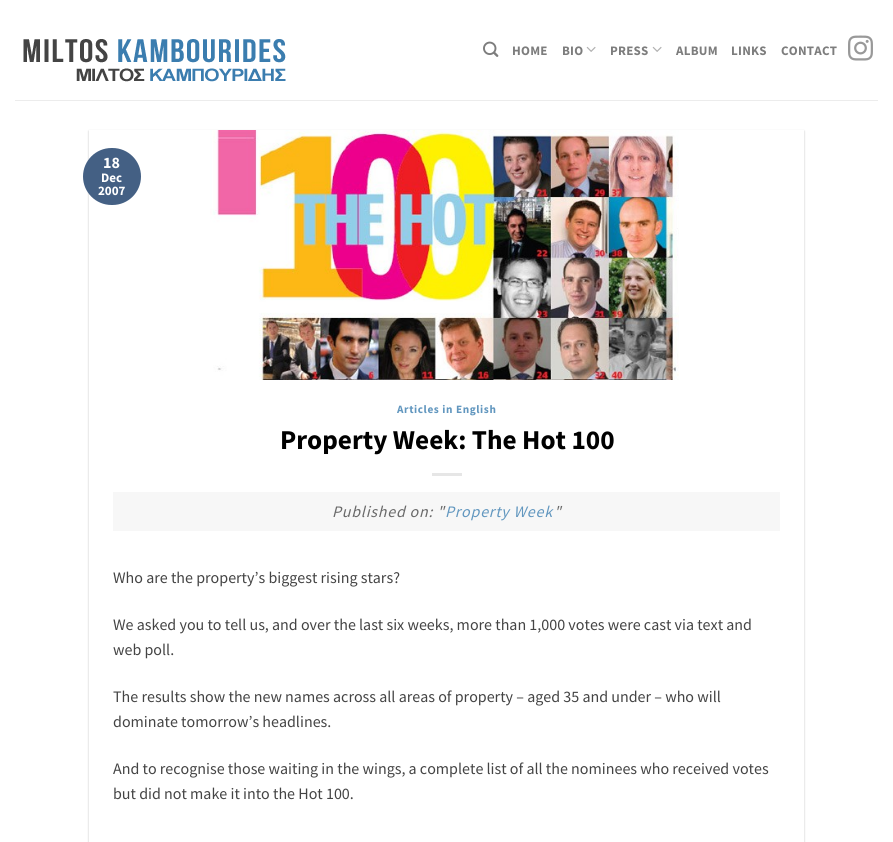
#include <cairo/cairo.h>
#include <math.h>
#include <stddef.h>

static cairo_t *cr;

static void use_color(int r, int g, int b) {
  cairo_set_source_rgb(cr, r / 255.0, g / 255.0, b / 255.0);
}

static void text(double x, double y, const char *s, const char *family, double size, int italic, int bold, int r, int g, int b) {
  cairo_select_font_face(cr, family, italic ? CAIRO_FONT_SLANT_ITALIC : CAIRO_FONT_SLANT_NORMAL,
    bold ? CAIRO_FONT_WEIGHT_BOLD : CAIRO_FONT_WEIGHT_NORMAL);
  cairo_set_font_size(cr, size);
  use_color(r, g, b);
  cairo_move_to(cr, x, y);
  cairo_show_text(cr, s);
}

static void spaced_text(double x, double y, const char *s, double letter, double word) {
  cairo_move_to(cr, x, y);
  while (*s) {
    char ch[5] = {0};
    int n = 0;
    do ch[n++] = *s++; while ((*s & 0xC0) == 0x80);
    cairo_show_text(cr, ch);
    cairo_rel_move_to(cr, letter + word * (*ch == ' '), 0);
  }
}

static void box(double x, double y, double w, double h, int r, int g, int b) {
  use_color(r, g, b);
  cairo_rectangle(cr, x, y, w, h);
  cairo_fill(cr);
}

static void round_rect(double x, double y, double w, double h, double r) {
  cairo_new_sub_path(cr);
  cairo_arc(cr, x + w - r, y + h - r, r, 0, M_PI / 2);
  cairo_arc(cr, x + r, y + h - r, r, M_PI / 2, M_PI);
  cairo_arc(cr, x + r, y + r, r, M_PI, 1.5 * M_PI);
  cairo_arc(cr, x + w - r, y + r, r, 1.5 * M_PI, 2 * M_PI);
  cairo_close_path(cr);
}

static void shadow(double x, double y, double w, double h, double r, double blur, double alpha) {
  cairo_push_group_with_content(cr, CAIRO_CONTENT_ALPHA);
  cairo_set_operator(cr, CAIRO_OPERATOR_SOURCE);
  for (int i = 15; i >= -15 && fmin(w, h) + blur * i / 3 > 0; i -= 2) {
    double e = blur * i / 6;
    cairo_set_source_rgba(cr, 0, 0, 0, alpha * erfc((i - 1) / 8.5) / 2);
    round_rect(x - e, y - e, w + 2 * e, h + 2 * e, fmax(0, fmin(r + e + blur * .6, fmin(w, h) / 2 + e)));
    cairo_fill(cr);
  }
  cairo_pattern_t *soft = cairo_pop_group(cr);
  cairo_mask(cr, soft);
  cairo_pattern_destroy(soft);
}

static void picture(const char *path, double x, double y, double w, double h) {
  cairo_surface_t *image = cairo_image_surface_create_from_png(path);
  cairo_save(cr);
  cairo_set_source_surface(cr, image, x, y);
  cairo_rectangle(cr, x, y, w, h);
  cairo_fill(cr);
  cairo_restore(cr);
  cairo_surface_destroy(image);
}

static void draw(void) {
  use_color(255, 255, 255);
  cairo_paint(cr);
  picture("img_01.png", 23, 39, 263, 43);
  picture("img_02.png", 483, 41, 16, 16);
  picture("img_03.png", 586, 46, 10, 6);
  picture("img_03.png", 652, 46, 10, 6);
  picture("img_04.png", 848, 35, 25, 26);
  box(15, 100, 863, 1, 236, 236, 236);
  cairo_save(cr);
  cairo_set_fill_rule(cr, CAIRO_FILL_RULE_EVEN_ODD);
  cairo_new_path(cr);
  cairo_move_to(cr, 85, 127);
  cairo_line_to(cr, 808, 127);
  cairo_line_to(cr, 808, 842);
  cairo_line_to(cr, 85, 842);
  cairo_close_path(cr);
  cairo_move_to(cr, 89, 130);
  cairo_line_to(cr, 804, 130);
  cairo_line_to(cr, 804, 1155);
  cairo_line_to(cr, 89, 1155);
  cairo_close_path(cr);
  cairo_clip(cr);
  use_color(0, 0, 0);
  shadow(89, 131, 715, 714, 0, 1, 0.24);
  cairo_restore(cr);
  use_color(68, 96, 132);
  round_rect(83, 148, 58, 57, 28.5);
  cairo_fill(cr);
  picture("img_05.png", 210, 130, 469, 250);
  box(432, 473, 30, 3, 230, 230, 230);
  box(113, 492, 667, 39, 247, 247, 247);
  cairo_select_font_face(cr, "Source Sans Pro", CAIRO_FONT_SLANT_NORMAL, CAIRO_FONT_WEIGHT_BOLD);
  cairo_set_font_size(cr, 13);
  use_color(125, 125, 125);
  spaced_text(512, 55, "HOME", 0.25, 0);
  spaced_text(562, 55, "BIO", 0.25, 0);
  spaced_text(610, 55, "PRESS", 0.25, 0);
  spaced_text(676, 55, "ALBUM", 0.25, 0);
  spaced_text(731, 55, "LINKS", 0.25, 0);
  spaced_text(781, 55, "CONTACT", 0.25, 0);
  text(103, 168, "18", "Source Sans Pro", 16, 0, 1, 255, 255, 255);
  text(101, 182, "Dec", "Source Sans Pro", 13, 0, 1, 255, 255, 255);
  text(98, 195, "2007", "Source Sans Pro", 13, 0, 1, 255, 255, 255);
  cairo_set_font_size(cr, 11.25);
  use_color(98, 151, 191);
  spaced_text(397, 413, "Articles in English", 0.6, 0);
  text(280, 449, "Property Week: The Hot 100", "Source Sans Pro", 27.25, 0, 1, 0, 0, 0);
  cairo_select_font_face(cr, "Source Sans Pro", CAIRO_FONT_SLANT_ITALIC, CAIRO_FONT_WEIGHT_NORMAL);
  cairo_set_font_size(cr, 16);
  use_color(105, 105, 105);
  spaced_text(332, 517, "Published on: \"", 0.75, 0);
  use_color(98, 151, 191);
  spaced_text(445, 517, "Property Week", 0.75, 0);
  use_color(105, 105, 105);
  spaced_text(554, 517, "\"", 0.75, 0);
  text(113, 583, "Who are the property’s biggest rising stars?", "Source Sans Pro", 16, 0, 0, 68, 68, 68);
  text(113, 630, "We asked you to tell us, and over the last six weeks, more than 1,000 votes were cast via text and", "Source Sans Pro", 16, 0, 0, 68, 68, 68);
  text(113, 655, "web poll.", "Source Sans Pro", 16, 0, 0, 68, 68, 68);
  text(113, 702, "The results show the new names across all areas of property – aged 35 and under – who will", "Source Sans Pro", 16, 0, 0, 68, 68, 68);
  text(113, 727, "dominate tomorrow’s headlines.", "Source Sans Pro", 16, 0, 0, 68, 68, 68);
  text(113, 774, "And to recognise those waiting in the wings, a complete list of all the nominees who received votes", "Source Sans Pro", 16, 0, 0, 68, 68, 68);
  text(113, 799, "but did not make it into the Hot 100.", "Source Sans Pro", 16, 0, 0, 68, 68, 68);
}

int main(void) {
  cairo_surface_t *surface = cairo_image_surface_create(CAIRO_FORMAT_RGB24, 893, 842);
  cr = cairo_create(surface);
  cairo_font_options_t *options = cairo_font_options_create();
  cairo_font_options_set_hint_metrics(options, CAIRO_HINT_METRICS_OFF);
  cairo_font_options_set_hint_style(options, CAIRO_HINT_STYLE_NONE);
  cairo_set_font_options(cr, options);
  cairo_set_miter_limit(cr, 4);
  draw();
  cairo_surface_write_to_png(surface, "out.png");
  cairo_font_options_destroy(options);
  cairo_destroy(cr);
  cairo_surface_destroy(surface);
  return 0;
}
